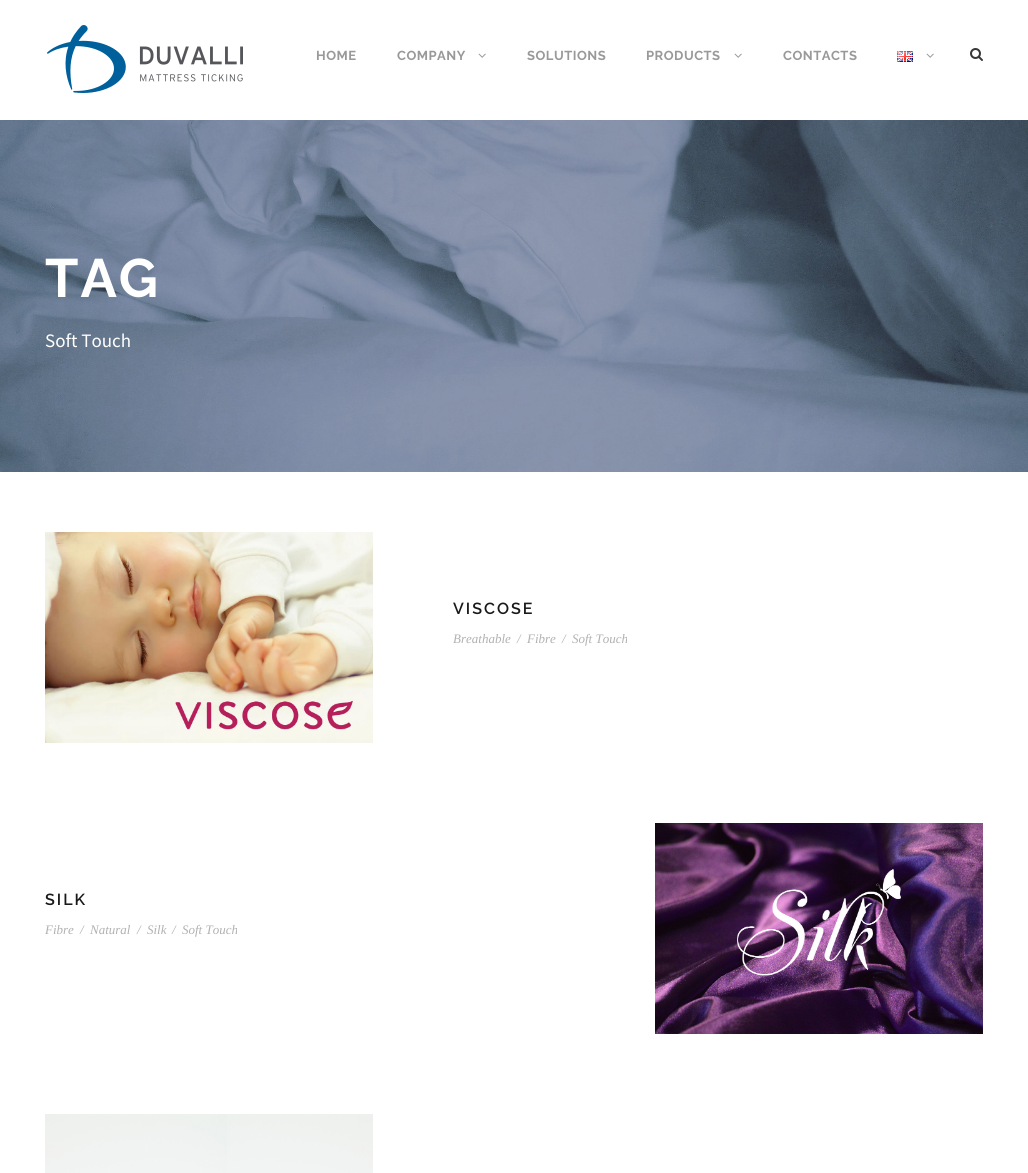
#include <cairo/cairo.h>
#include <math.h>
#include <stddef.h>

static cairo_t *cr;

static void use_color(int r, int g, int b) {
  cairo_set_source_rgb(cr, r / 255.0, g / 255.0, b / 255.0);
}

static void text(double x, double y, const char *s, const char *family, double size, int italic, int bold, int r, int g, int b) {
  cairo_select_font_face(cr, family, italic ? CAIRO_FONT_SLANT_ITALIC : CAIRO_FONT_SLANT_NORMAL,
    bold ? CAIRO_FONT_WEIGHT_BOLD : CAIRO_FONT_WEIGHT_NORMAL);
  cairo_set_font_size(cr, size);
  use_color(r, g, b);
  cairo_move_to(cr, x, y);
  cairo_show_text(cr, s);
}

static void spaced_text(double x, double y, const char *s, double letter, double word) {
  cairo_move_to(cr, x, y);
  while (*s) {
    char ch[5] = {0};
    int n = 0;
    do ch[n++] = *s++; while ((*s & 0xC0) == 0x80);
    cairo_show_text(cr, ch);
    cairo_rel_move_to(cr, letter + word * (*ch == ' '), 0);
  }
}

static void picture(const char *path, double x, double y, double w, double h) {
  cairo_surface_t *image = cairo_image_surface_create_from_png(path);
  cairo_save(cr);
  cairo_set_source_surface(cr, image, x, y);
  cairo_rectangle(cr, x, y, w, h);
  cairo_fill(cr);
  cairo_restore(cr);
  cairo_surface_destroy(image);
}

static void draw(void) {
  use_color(255, 255, 255);
  cairo_paint(cr);
  picture("img_01.png", 47, 25, 196, 68);
  picture("img_02.png", 478, 53, 8, 5);
  picture("img_02.png", 734, 53, 8, 5);
  picture("img_03.png", 897, 51, 16, 11);
  picture("img_02.png", 926, 53, 8, 5);
  picture("img_04.png", 970, 48, 13, 13);
  picture("img_05.png", 0, 120, 1028, 352);
  picture("img_06.png", 45, 532, 328, 211);
  picture("img_07.png", 655, 823, 328, 211);
  picture("img_08.png", 45, 1114, 328, 59);
  cairo_select_font_face(cr, "Raleway", CAIRO_FONT_SLANT_NORMAL, CAIRO_FONT_WEIGHT_BOLD);
  cairo_set_font_size(cr, 13);
  use_color(153, 153, 153);
  spaced_text(316, 60, "HOME", 0.5, 0);
  spaced_text(397, 60, "COMPANY", 0.5, 0);
  spaced_text(527, 60, "SOLUTIONS", 0.5, 0);
  spaced_text(646, 60, "PRODUCTS", 0.5, 0);
  spaced_text(783, 60, "CONTACTS", 0.5, 0);
  cairo_set_font_size(cr, 54);
  use_color(255, 255, 255);
  spaced_text(45, 297, "TAG", 2, 0);
  text(45, 347, "Soft Touch", "Source Sans Pro", 19, 0, 0, 255, 255, 255);
  cairo_select_font_face(cr, "Raleway SemiBold", CAIRO_FONT_SLANT_NORMAL, CAIRO_FONT_WEIGHT_NORMAL);
  cairo_set_font_size(cr, 16);
  use_color(25, 25, 25);
  spaced_text(453, 614, "VISCOSE", 2, 0);
  text(453, 643, "Breathable", "Liberation Serif", 13, 1, 0, 177, 177, 177);
  text(517, 643, "/", "Liberation Serif", 13, 1, 0, 177, 177, 177);
  text(527, 643, "Fibre", "Liberation Serif", 13, 1, 0, 177, 177, 177);
  text(562, 643, "/", "Liberation Serif", 13, 1, 0, 177, 177, 177);
  text(572, 643, "Soft Touch", "Liberation Serif", 13, 1, 0, 177, 177, 177);
  cairo_select_font_face(cr, "Raleway SemiBold", CAIRO_FONT_SLANT_NORMAL, CAIRO_FONT_WEIGHT_NORMAL);
  cairo_set_font_size(cr, 16);
  use_color(25, 25, 25);
  spaced_text(45, 905, "SILK", 2, 0);
  text(45, 934, "Fibre", "Liberation Serif", 13, 1, 0, 177, 177, 177);
  text(80, 934, "/", "Liberation Serif", 13, 1, 0, 177, 177, 177);
  text(90, 934, "Natural", "Liberation Serif", 13, 1, 0, 177, 177, 177);
  text(137, 934, "/", "Liberation Serif", 13, 1, 0, 177, 177, 177);
  text(147, 934, "Silk", "Liberation Serif", 13, 1, 0, 177, 177, 177);
  text(172, 934, "/", "Liberation Serif", 13, 1, 0, 177, 177, 177);
  text(182, 934, "Soft Touch", "Liberation Serif", 13, 1, 0, 177, 177, 177);
}

int main(void) {
  cairo_surface_t *surface = cairo_image_surface_create(CAIRO_FORMAT_RGB24, 1028, 1173);
  cr = cairo_create(surface);
  cairo_font_options_t *options = cairo_font_options_create();
  cairo_font_options_set_hint_metrics(options, CAIRO_HINT_METRICS_OFF);
  cairo_font_options_set_hint_style(options, CAIRO_HINT_STYLE_NONE);
  cairo_set_font_options(cr, options);
  cairo_set_miter_limit(cr, 4);
  draw();
  cairo_surface_write_to_png(surface, "out.png");
  cairo_font_options_destroy(options);
  cairo_destroy(cr);
  cairo_surface_destroy(surface);
  return 0;
}
